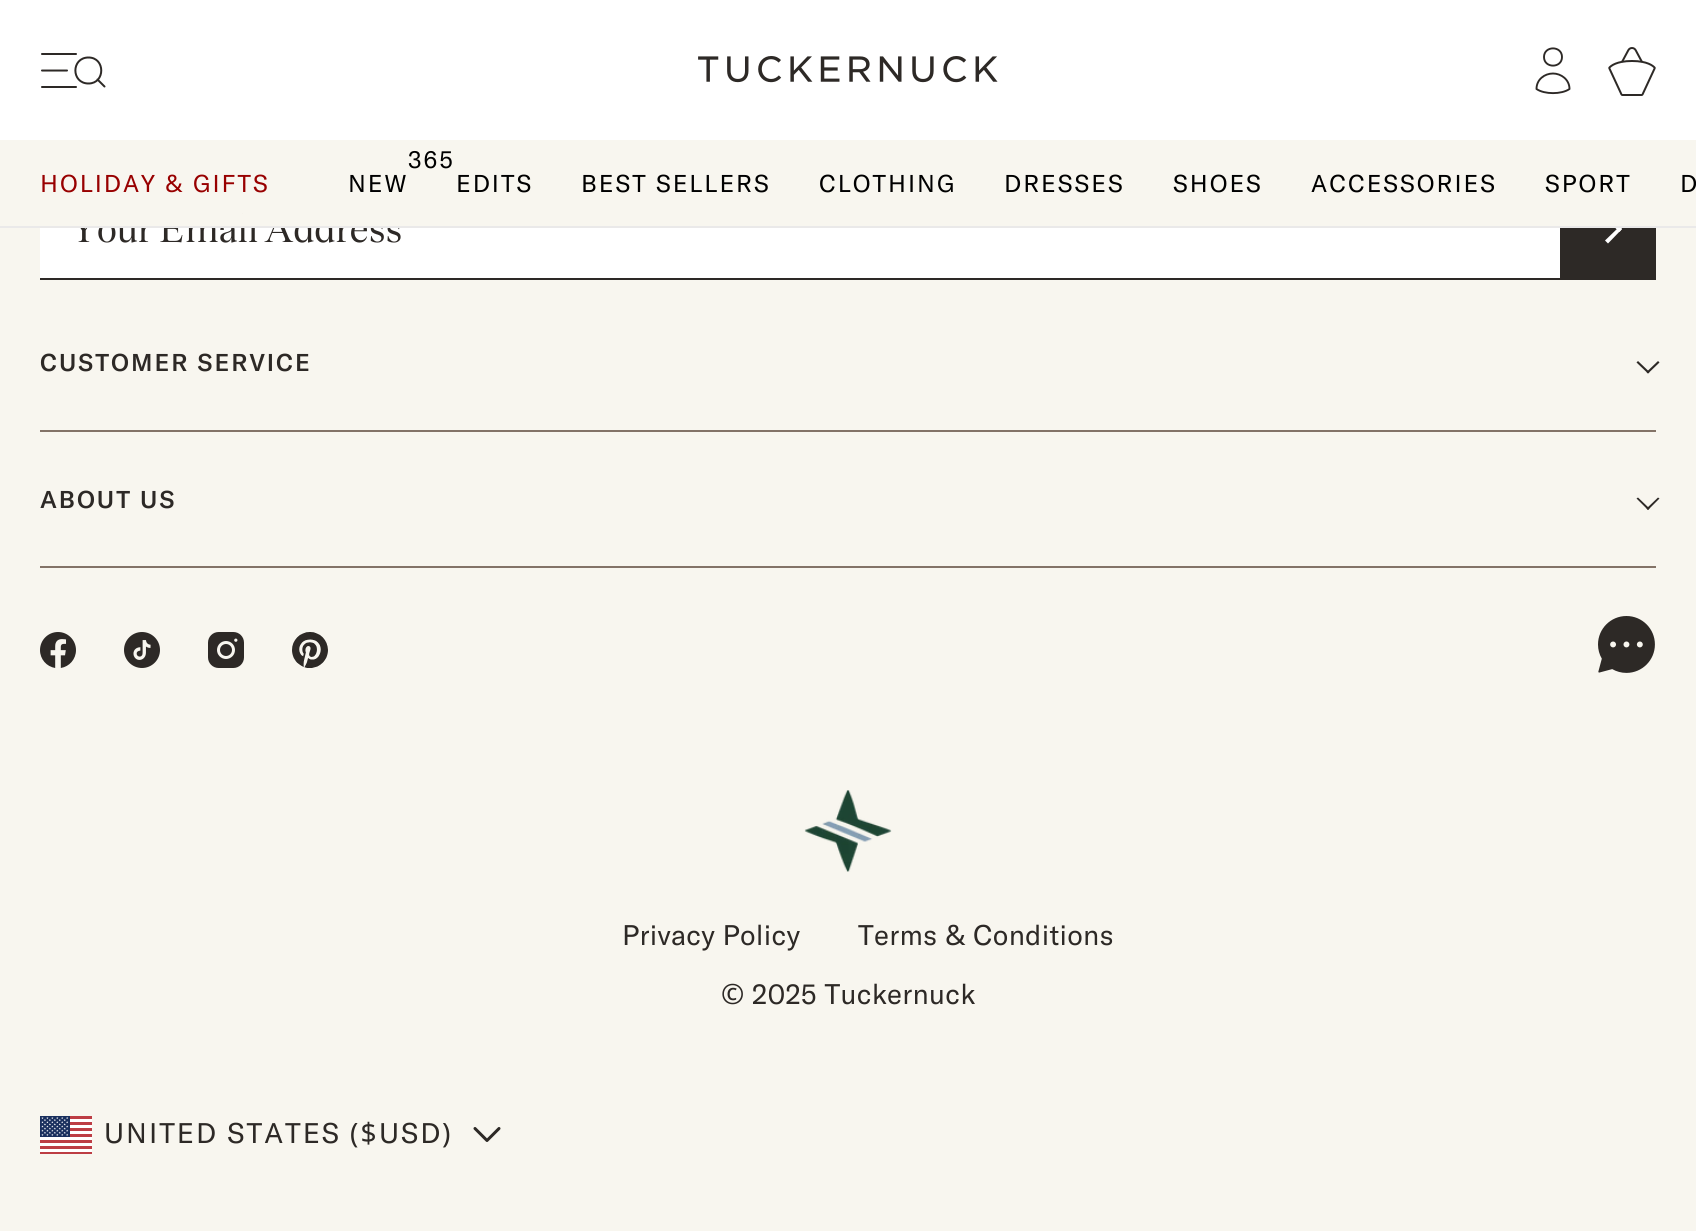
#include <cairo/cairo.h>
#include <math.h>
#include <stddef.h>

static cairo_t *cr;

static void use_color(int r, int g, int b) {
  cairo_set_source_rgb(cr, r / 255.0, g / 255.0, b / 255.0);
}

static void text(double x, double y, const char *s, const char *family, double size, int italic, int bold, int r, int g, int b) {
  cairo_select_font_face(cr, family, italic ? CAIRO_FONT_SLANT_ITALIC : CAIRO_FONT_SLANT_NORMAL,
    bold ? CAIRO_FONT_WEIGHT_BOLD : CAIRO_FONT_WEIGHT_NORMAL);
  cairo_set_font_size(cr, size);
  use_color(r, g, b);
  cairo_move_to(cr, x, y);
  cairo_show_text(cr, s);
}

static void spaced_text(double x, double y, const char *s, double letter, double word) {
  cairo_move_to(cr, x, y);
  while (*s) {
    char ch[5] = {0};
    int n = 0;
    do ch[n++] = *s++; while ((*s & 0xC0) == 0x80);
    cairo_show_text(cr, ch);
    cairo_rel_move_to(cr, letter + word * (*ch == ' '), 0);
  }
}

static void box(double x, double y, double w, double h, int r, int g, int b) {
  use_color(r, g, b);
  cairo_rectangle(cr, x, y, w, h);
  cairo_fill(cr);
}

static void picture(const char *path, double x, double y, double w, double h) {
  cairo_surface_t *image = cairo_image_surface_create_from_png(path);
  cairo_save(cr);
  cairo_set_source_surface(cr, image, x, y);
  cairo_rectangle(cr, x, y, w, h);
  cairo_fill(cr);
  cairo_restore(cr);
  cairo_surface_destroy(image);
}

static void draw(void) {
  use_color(248, 246, 239);
  cairo_paint(cr);
  box(0, 0, 1696, 140, 255, 255, 255);
  cairo_new_path(cr);
  cairo_move_to(cr, 88.5, 83.5);
  cairo_curve_to(cr, 105.5, 83.5, 105.5, 57.5, 88.5, 57.5);
  cairo_curve_to(cr, 71, 57.5, 71, 83.5, 88.5, 83.5);
  cairo_close_path(cr);
  cairo_move_to(cr, 104.5, 86.5);
  cairo_line_to(cr, 97.5, 79.5);
  use_color(45, 41, 38);
  cairo_set_line_cap(cr, CAIRO_LINE_CAP_ROUND);
  cairo_set_line_join(cr, CAIRO_LINE_JOIN_ROUND);
  cairo_stroke(cr);
  cairo_new_path(cr);
  cairo_move_to(cr, 76, 54);
  cairo_line_to(cr, 42, 54);
  cairo_move_to(cr, 67, 70.5);
  cairo_line_to(cr, 42, 70.5);
  cairo_move_to(cr, 76, 87);
  cairo_line_to(cr, 42, 87);
  cairo_set_line_join(cr, CAIRO_LINE_JOIN_MITER);
  cairo_stroke(cr);
  picture("img_01.png", 698, 56, 300, 27);
  cairo_new_path(cr);
  cairo_move_to(cr, 1562, 57);
  cairo_curve_to(cr, 1562, 68.5, 1544, 68.5, 1544, 57);
  cairo_curve_to(cr, 1544, 45.5, 1562, 45.5, 1562, 57);
  cairo_close_path(cr);
  cairo_move_to(cr, 1553, 73.5);
  cairo_curve_to(cr, 1544.5, 73.5, 1536.5, 79.5, 1536.5, 89);
  cairo_curve_to(cr, 1544.5, 94.5, 1561.5, 94.5, 1569.5, 89);
  cairo_curve_to(cr, 1569.5, 79.5, 1561, 73.5, 1553, 73.5);
  cairo_close_path(cr);
  cairo_set_line_width(cr, 1.9);
  cairo_set_line_join(cr, CAIRO_LINE_JOIN_ROUND);
  cairo_stroke(cr);
  picture("img_02.png", 1608, 47, 48, 49);
  box(40, 228, 1520, 50, 255, 255, 255);
  box(40, 278, 1520, 2, 45, 41, 38);
  box(1560, 228, 96, 52, 45, 41, 38);
  use_color(255, 255, 255);
  cairo_new_path(cr);
  cairo_move_to(cr, 1605, 218);
  cairo_line_to(cr, 1608, 215);
  cairo_line_to(cr, 1622, 229);
  cairo_line_to(cr, 1619.5, 232);
  cairo_close_path(cr);
  cairo_fill(cr);
  cairo_new_path(cr);
  cairo_move_to(cr, 1605, 240.5);
  cairo_line_to(cr, 1619.5, 226.5);
  cairo_line_to(cr, 1622, 229);
  cairo_line_to(cr, 1608, 243.5);
  cairo_close_path(cr);
  cairo_fill(cr);
  box(40, 430, 1616, 2, 131, 115, 103);
  use_color(45, 41, 38);
  cairo_new_path(cr);
  cairo_move_to(cr, 1646.5, 372);
  cairo_line_to(cr, 1658, 361);
  cairo_line_to(cr, 1659.5, 362.5);
  cairo_line_to(cr, 1648, 373.5);
  cairo_close_path(cr);
  cairo_fill(cr);
  cairo_new_path(cr);
  cairo_move_to(cr, 1636.5, 362.5);
  cairo_line_to(cr, 1638, 361);
  cairo_line_to(cr, 1649.5, 372);
  cairo_line_to(cr, 1648, 373.5);
  cairo_close_path(cr);
  cairo_fill(cr);
  box(40, 566, 1616, 2, 131, 115, 103);
  use_color(45, 41, 38);
  cairo_new_path(cr);
  cairo_move_to(cr, 1646.5, 508.5);
  cairo_line_to(cr, 1658, 497.5);
  cairo_line_to(cr, 1659.5, 498.5);
  cairo_line_to(cr, 1648, 510);
  cairo_close_path(cr);
  cairo_fill(cr);
  cairo_new_path(cr);
  cairo_move_to(cr, 1636.5, 498.5);
  cairo_line_to(cr, 1638, 497.5);
  cairo_line_to(cr, 1649.5, 508.5);
  cairo_line_to(cr, 1648, 510);
  cairo_close_path(cr);
  cairo_fill(cr);
  picture("img_03.png", 40, 632, 36, 36);
  picture("img_04.png", 124, 632, 36, 36);
  picture("img_05.png", 208, 632, 36, 36);
  picture("img_06.png", 292, 632, 36, 36);
  picture("img_07.png", 804, 790, 88, 82);
  picture("img_08.png", 1598, 616, 57, 57);
  picture("img_09.png", 40, 1116, 52, 38);
  cairo_save(cr);
  cairo_new_path(cr);
  cairo_move_to(cr, 500.5, 1112.5);
  cairo_line_to(cr, 500.5, 1156.5);
  cairo_line_to(cr, 472.5, 1156.5);
  cairo_line_to(cr, 472.5, 1112.5);
  cairo_close_path(cr);
  cairo_clip(cr);
  cairo_new_path(cr);
  cairo_move_to(cr, 475, 1128.5);
  cairo_line_to(cr, 487, 1140.5);
  cairo_line_to(cr, 499, 1128.5);
  cairo_set_line_width(cr, 3);
  cairo_stroke(cr);
  cairo_restore(cr);
  cairo_select_font_face(cr, "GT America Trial", CAIRO_FONT_SLANT_NORMAL, CAIRO_FONT_WEIGHT_NORMAL);
  cairo_set_font_size(cr, 24);
  use_color(152, 0, 0);
  spaced_text(40, 192, "HOLIDAY", 2, 0);
  cairo_select_font_face(cr, "Noto Sans", CAIRO_FONT_SLANT_NORMAL, CAIRO_FONT_WEIGHT_NORMAL);
  spaced_text(165, 192, "&", 2, 0);
  cairo_select_font_face(cr, "GT America Trial", CAIRO_FONT_SLANT_NORMAL, CAIRO_FONT_WEIGHT_NORMAL);
  spaced_text(193, 192, "GIFTS", 2, 0);
  use_color(0, 0, 0);
  spaced_text(408, 168, "365", 2, 0);
  spaced_text(348, 192, "NEW", 2, 0);
  spaced_text(456, 192, "EDITS", 2, 0);
  spaced_text(581, 192, "BEST SELLERS", 2, 0);
  spaced_text(819, 192, "CLOTHING", 2, 0);
  spaced_text(1004, 192, "DRESSES", 2, 0);
  spaced_text(1173, 192, "SHOES", 2, 0);
  spaced_text(1311, 192, "ACCESSORIES", 2, 0);
  spaced_text(1545, 192, "SPORT", 2, 0);
  spaced_text(1680, 192, "D", 2, 0);
  text(72, 242, "Your Email Address", "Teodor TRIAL", 40, 0, 0, 45, 41, 38);
  box(0, 226, 1696, 2, 234, 233, 233);
  box(71, 214, 1548, 12, 248, 246, 239);
  cairo_select_font_face(cr, "GT America Trial Medium", CAIRO_FONT_SLANT_NORMAL, CAIRO_FONT_WEIGHT_NORMAL);
  cairo_set_font_size(cr, 24);
  use_color(45, 41, 38);
  spaced_text(40, 371, "CUSTOMER SERVICE", 2, 0);
  spaced_text(40, 508, "ABOUT US", 2, 0);
  cairo_select_font_face(cr, "GT America Trial", CAIRO_FONT_SLANT_NORMAL, CAIRO_FONT_WEIGHT_NORMAL);
  cairo_set_font_size(cr, 28);
  spaced_text(622, 945, "Privacy Policy", 0.25, 0);
  spaced_text(858, 945, "Terms", 0.25, 0);
  cairo_select_font_face(cr, "Noto Sans", CAIRO_FONT_SLANT_NORMAL, CAIRO_FONT_WEIGHT_NORMAL);
  spaced_text(945, 945, "&", 0.25, 0);
  cairo_select_font_face(cr, "GT America Trial", CAIRO_FONT_SLANT_NORMAL, CAIRO_FONT_WEIGHT_NORMAL);
  spaced_text(973, 945, "Conditions", 0.25, 0);
  cairo_select_font_face(cr, "Noto Sans", CAIRO_FONT_SLANT_NORMAL, CAIRO_FONT_WEIGHT_NORMAL);
  spaced_text(721, 1004, "©", 0.25, 0);
  cairo_select_font_face(cr, "GT America Trial", CAIRO_FONT_SLANT_NORMAL, CAIRO_FONT_WEIGHT_NORMAL);
  spaced_text(752, 1004, "2025 Tuckernuck", 0.25, 0);
  spaced_text(104, 1143, "UNITED STATES", 2, 0);
  cairo_select_font_face(cr, "Noto Sans", CAIRO_FONT_SLANT_NORMAL, CAIRO_FONT_WEIGHT_NORMAL);
  spaced_text(350, 1143, "($", 2, 0);
  cairo_select_font_face(cr, "GT America Trial", CAIRO_FONT_SLANT_NORMAL, CAIRO_FONT_WEIGHT_NORMAL);
  spaced_text(379, 1143, "USD", 2, 0);
  cairo_select_font_face(cr, "Noto Sans", CAIRO_FONT_SLANT_NORMAL, CAIRO_FONT_WEIGHT_NORMAL);
  spaced_text(442, 1143, ")", 2, 0);
}

int main(void) {
  cairo_surface_t *surface = cairo_image_surface_create(CAIRO_FORMAT_RGB24, 1696, 1231);
  cr = cairo_create(surface);
  cairo_font_options_t *options = cairo_font_options_create();
  cairo_font_options_set_hint_metrics(options, CAIRO_HINT_METRICS_OFF);
  cairo_font_options_set_hint_style(options, CAIRO_HINT_STYLE_NONE);
  cairo_set_font_options(cr, options);
  cairo_set_miter_limit(cr, 4);
  draw();
  cairo_surface_write_to_png(surface, "out.png");
  cairo_font_options_destroy(options);
  cairo_destroy(cr);
  cairo_surface_destroy(surface);
  return 0;
}
